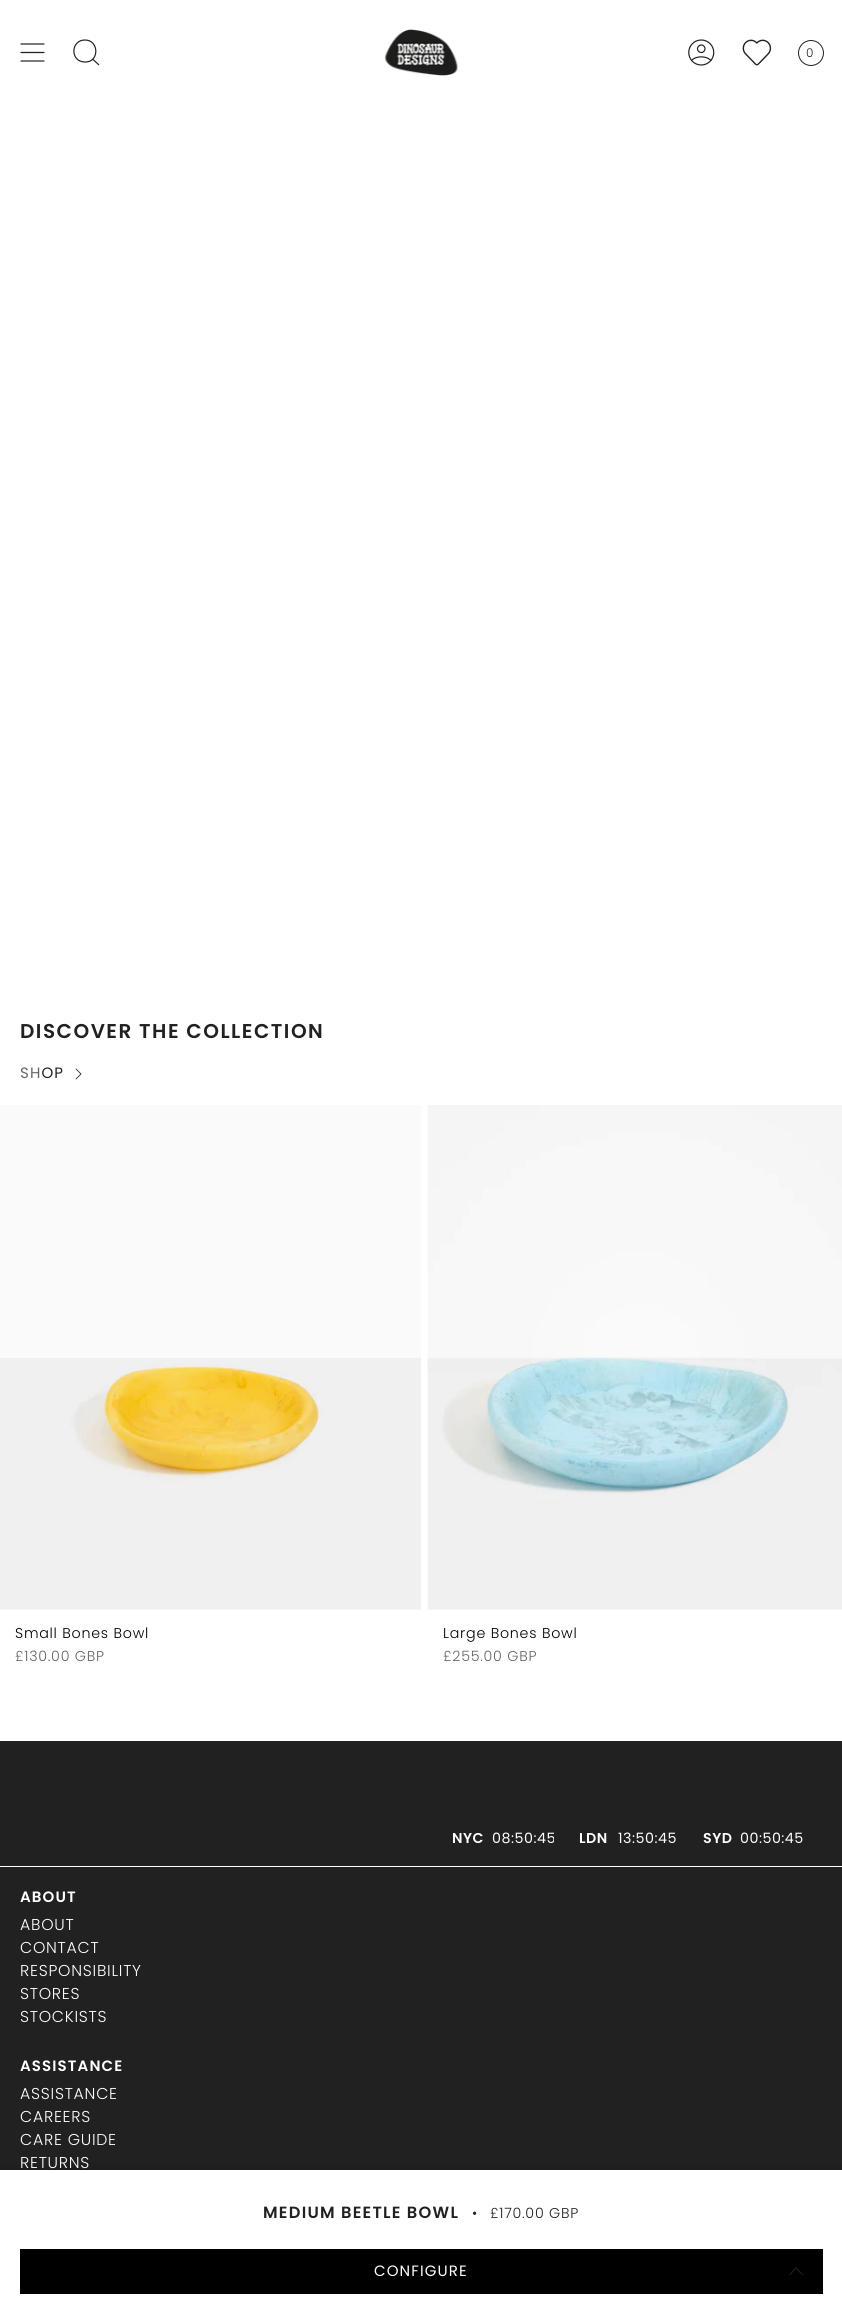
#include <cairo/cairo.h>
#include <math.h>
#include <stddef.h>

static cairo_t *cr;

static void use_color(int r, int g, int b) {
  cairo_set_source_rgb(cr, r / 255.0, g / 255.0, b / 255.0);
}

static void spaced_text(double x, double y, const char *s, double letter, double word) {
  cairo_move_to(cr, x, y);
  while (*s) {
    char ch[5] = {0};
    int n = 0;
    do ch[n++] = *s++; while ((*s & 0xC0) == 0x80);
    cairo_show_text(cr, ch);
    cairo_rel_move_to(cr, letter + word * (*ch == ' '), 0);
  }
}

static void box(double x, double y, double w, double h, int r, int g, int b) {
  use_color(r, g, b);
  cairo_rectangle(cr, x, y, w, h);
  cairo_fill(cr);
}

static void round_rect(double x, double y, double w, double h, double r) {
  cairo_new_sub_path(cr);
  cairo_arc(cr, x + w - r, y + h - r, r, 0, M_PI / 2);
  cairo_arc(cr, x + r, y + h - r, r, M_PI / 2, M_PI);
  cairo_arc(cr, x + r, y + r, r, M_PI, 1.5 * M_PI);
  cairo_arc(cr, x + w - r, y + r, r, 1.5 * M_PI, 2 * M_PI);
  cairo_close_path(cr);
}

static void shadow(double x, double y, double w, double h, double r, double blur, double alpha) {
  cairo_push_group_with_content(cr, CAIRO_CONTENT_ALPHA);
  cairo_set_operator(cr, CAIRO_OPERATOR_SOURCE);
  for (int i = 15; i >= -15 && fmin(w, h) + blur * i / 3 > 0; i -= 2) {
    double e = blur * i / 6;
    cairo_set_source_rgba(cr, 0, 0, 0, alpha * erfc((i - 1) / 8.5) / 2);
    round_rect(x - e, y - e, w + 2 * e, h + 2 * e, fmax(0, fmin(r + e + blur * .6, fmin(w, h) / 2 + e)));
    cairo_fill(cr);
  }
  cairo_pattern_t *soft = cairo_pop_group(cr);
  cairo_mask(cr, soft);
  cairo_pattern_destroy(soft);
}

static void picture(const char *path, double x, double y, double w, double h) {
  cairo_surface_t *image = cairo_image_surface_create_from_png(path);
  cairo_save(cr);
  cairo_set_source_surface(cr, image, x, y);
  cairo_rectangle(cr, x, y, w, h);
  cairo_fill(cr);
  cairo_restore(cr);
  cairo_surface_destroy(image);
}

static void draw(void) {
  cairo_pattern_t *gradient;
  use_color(255, 255, 255);
  cairo_paint(cr);
  box(428, 1609, 414, 1, 250, 250, 250);
  box(0, 1105, 421, 505, 250, 250, 250);
  cairo_new_path(cr);
  cairo_move_to(cr, 21, 44);
  cairo_line_to(cr, 44, 44);
  cairo_move_to(cr, 21, 52.5);
  cairo_line_to(cr, 44, 52.5);
  cairo_move_to(cr, 21, 61);
  cairo_line_to(cr, 44, 61);
  use_color(33, 33, 33);
  cairo_set_line_width(cr, 1.2);
  cairo_set_line_cap(cr, CAIRO_LINE_CAP_ROUND);
  cairo_set_line_join(cr, CAIRO_LINE_JOIN_ROUND);
  cairo_stroke(cr);
  cairo_new_path(cr);
  cairo_move_to(cr, 85, 40);
  cairo_curve_to(cr, 99.5, 40, 99.5, 63, 84.5, 62);
  cairo_curve_to(cr, 70, 61.5, 70.5, 40, 85, 40);
  cairo_close_path(cr);
  cairo_move_to(cr, 92.5, 59);
  cairo_line_to(cr, 99, 65);
  cairo_set_line_cap(cr, CAIRO_LINE_CAP_BUTT);
  cairo_set_line_join(cr, CAIRO_LINE_JOIN_MITER);
  cairo_stroke(cr);
  picture("img_01.png", 384, 29, 75, 47);
  picture("img_02.png", 688, 39, 27, 27);
  picture("img_03.png", 742, 39, 30, 27);
  cairo_arc(cr, 811, 53, 12.5, 0, 2 * M_PI);
  cairo_set_line_width(cr, 1);
  cairo_stroke(cr);
  cairo_new_path(cr);
  cairo_move_to(cr, 76, 1069);
  cairo_line_to(cr, 81, 1074);
  cairo_line_to(cr, 76, 1079);
  cairo_set_line_width(cr, 0.8);
  cairo_set_line_cap(cr, CAIRO_LINE_CAP_ROUND);
  cairo_set_line_join(cr, CAIRO_LINE_JOIN_ROUND);
  cairo_stroke(cr);
  picture("img_04.png", 0, 1358, 421, 252);
  picture("img_05.png", 427, 1105, 415, 505);
  box(0, 1867, 842, 303, 33, 33, 33);
  use_color(0, 0, 0);
  shadow(0, 2170, 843, 150, 0, 6, 0.2);
  box(0, 2170, 842, 150, 255, 255, 255);
  box(20, 2249, 803, 45, 0, 0, 0);
  cairo_new_path(cr);
  cairo_move_to(cr, 790, 2274.5);
  cairo_line_to(cr, 796, 2268);
  cairo_line_to(cr, 802.5, 2274.5);
  use_color(33, 33, 33);
  cairo_set_line_width(cr, 1);
  cairo_stroke(cr);
  box(0, 1741, 842, 125, 33, 33, 33);
  cairo_select_font_face(cr, "Poppins Light", CAIRO_FONT_SLANT_NORMAL, CAIRO_FONT_WEIGHT_NORMAL);
  cairo_set_font_size(cr, 12);
  spaced_text(806, 57, "0", 1.25, 0);
  cairo_select_font_face(cr, "Poppins SemiBold", CAIRO_FONT_SLANT_NORMAL, CAIRO_FONT_WEIGHT_NORMAL);
  cairo_set_font_size(cr, 20);
  spaced_text(20, 1038, "DISCOVER THE COLLECTION", 1.5, 0);
  cairo_select_font_face(cr, "Poppins", CAIRO_FONT_SLANT_NORMAL, CAIRO_FONT_WEIGHT_NORMAL);
  cairo_set_font_size(cr, 15);
  gradient = cairo_pattern_create_linear(20, 1073, 64, 1073);
  cairo_pattern_add_color_stop_rgba(gradient, 0, 0.392, 0.392, 0.392, 1);
  cairo_pattern_add_color_stop_rgba(gradient, 0.5, 0.392, 0.392, 0.392, 1);
  cairo_pattern_add_color_stop_rgba(gradient, 0.5, 0.129, 0.129, 0.129, 1);
  cairo_pattern_add_color_stop_rgba(gradient, 1, 0.129, 0.129, 0.129, 1);
  cairo_set_source(cr, gradient);
  cairo_pattern_destroy(gradient);
  spaced_text(20, 1078, "SHOP", 1.1, 0);
  cairo_select_font_face(cr, "Poppins Light", CAIRO_FONT_SLANT_NORMAL, CAIRO_FONT_WEIGHT_NORMAL);
  cairo_set_font_size(cr, 14.25);
  use_color(0, 0, 0);
  spaced_text(15, 1638, "Small Bones Bowl", 0.75, 0);
  use_color(100, 100, 100);
  spaced_text(15, 1661, "£130.00 GBP", 0.75, 0);
  use_color(0, 0, 0);
  spaced_text(443, 1638, "Large Bones Bowl", 0.75, 0);
  use_color(100, 100, 100);
  spaced_text(443, 1661, "£255.00 GBP", 0.75, 0);
  cairo_select_font_face(cr, "Poppins SemiBold", CAIRO_FONT_SLANT_NORMAL, CAIRO_FONT_WEIGHT_NORMAL);
  cairo_set_font_size(cr, 16.25);
  use_color(33, 33, 33);
  spaced_text(263, 2218, "MEDIUM BEETLE BOWL", 1.25, 0);
  cairo_select_font_face(cr, "Poppins Light", CAIRO_FONT_SLANT_NORMAL, CAIRO_FONT_WEIGHT_NORMAL);
  cairo_set_font_size(cr, 14.25);
  spaced_text(472, 2218, "•", 0.75, 0);
  spaced_text(490, 2218, "£170.00 GBP", 0.75, 0);
  cairo_select_font_face(cr, "Poppins", CAIRO_FONT_SLANT_NORMAL, CAIRO_FONT_WEIGHT_NORMAL);
  cairo_set_font_size(cr, 15);
  use_color(255, 255, 255);
  spaced_text(374, 2276, "CONFIGURE", 1.1, 0);
  cairo_select_font_face(cr, "Poppins SemiBold", CAIRO_FONT_SLANT_NORMAL, CAIRO_FONT_WEIGHT_NORMAL);
  cairo_set_font_size(cr, 14.25);
  spaced_text(452, 1843, "NYC", 0.5, 0);
  cairo_save(cr);
  cairo_rectangle(cr, 491, 1829, 63, 21);
  cairo_clip(cr);
  cairo_select_font_face(cr, "Poppins", CAIRO_FONT_SLANT_NORMAL, CAIRO_FONT_WEIGHT_NORMAL);
  spaced_text(492, 1843, "08:50:45", 0.5, 0);
  cairo_restore(cr);
  spaced_text(579, 1843, "LDN", 0.5, 0);
  cairo_select_font_face(cr, "Poppins", CAIRO_FONT_SLANT_NORMAL, CAIRO_FONT_WEIGHT_NORMAL);
  spaced_text(618, 1843, "13:50:45", 0.5, 0);
  cairo_select_font_face(cr, "Poppins SemiBold", CAIRO_FONT_SLANT_NORMAL, CAIRO_FONT_WEIGHT_NORMAL);
  spaced_text(703, 1843, "SYD", 0.5, 0);
  cairo_save(cr);
  cairo_rectangle(cr, 740, 1829, 63, 21);
  cairo_clip(cr);
  cairo_select_font_face(cr, "Poppins", CAIRO_FONT_SLANT_NORMAL, CAIRO_FONT_WEIGHT_NORMAL);
  spaced_text(740, 1843, "00:50:45", 0.5, 0);
  cairo_restore(cr);
  cairo_set_font_size(cr, 15);
  spaced_text(20, 1902, "ABOUT", 1.1, 0);
  cairo_select_font_face(cr, "Poppins Light", CAIRO_FONT_SLANT_NORMAL, CAIRO_FONT_WEIGHT_NORMAL);
  cairo_set_font_size(cr, 15.75);
  spaced_text(20, 1930, "ABOUT", 0.75, 0);
  spaced_text(20, 1953, "CONTACT", 0.75, 0);
  spaced_text(20, 1976, "RESPONSIBILITY", 0.75, 0);
  spaced_text(20, 1999, "STORES", 0.75, 0);
  spaced_text(20, 2022, "STOCKISTS", 0.75, 0);
  cairo_select_font_face(cr, "Poppins SemiBold", CAIRO_FONT_SLANT_NORMAL, CAIRO_FONT_WEIGHT_NORMAL);
  cairo_set_font_size(cr, 15);
  spaced_text(20, 2071, "ASSISTANCE", 1.1, 0);
  cairo_select_font_face(cr, "Poppins Light", CAIRO_FONT_SLANT_NORMAL, CAIRO_FONT_WEIGHT_NORMAL);
  cairo_set_font_size(cr, 15.75);
  spaced_text(20, 2099, "ASSISTANCE", 0.75, 0);
  spaced_text(20, 2122, "CAREERS", 0.75, 0);
  spaced_text(20, 2145, "CARE GUIDE", 0.75, 0);
  spaced_text(20, 2168, "RETURNS", 0.75, 0);
}

int main(void) {
  cairo_surface_t *surface = cairo_image_surface_create(CAIRO_FORMAT_RGB24, 842, 2320);
  cr = cairo_create(surface);
  cairo_font_options_t *options = cairo_font_options_create();
  cairo_font_options_set_hint_metrics(options, CAIRO_HINT_METRICS_OFF);
  cairo_font_options_set_hint_style(options, CAIRO_HINT_STYLE_NONE);
  cairo_set_font_options(cr, options);
  cairo_set_miter_limit(cr, 4);
  draw();
  cairo_surface_write_to_png(surface, "out.png");
  cairo_font_options_destroy(options);
  cairo_destroy(cr);
  cairo_surface_destroy(surface);
  return 0;
}
